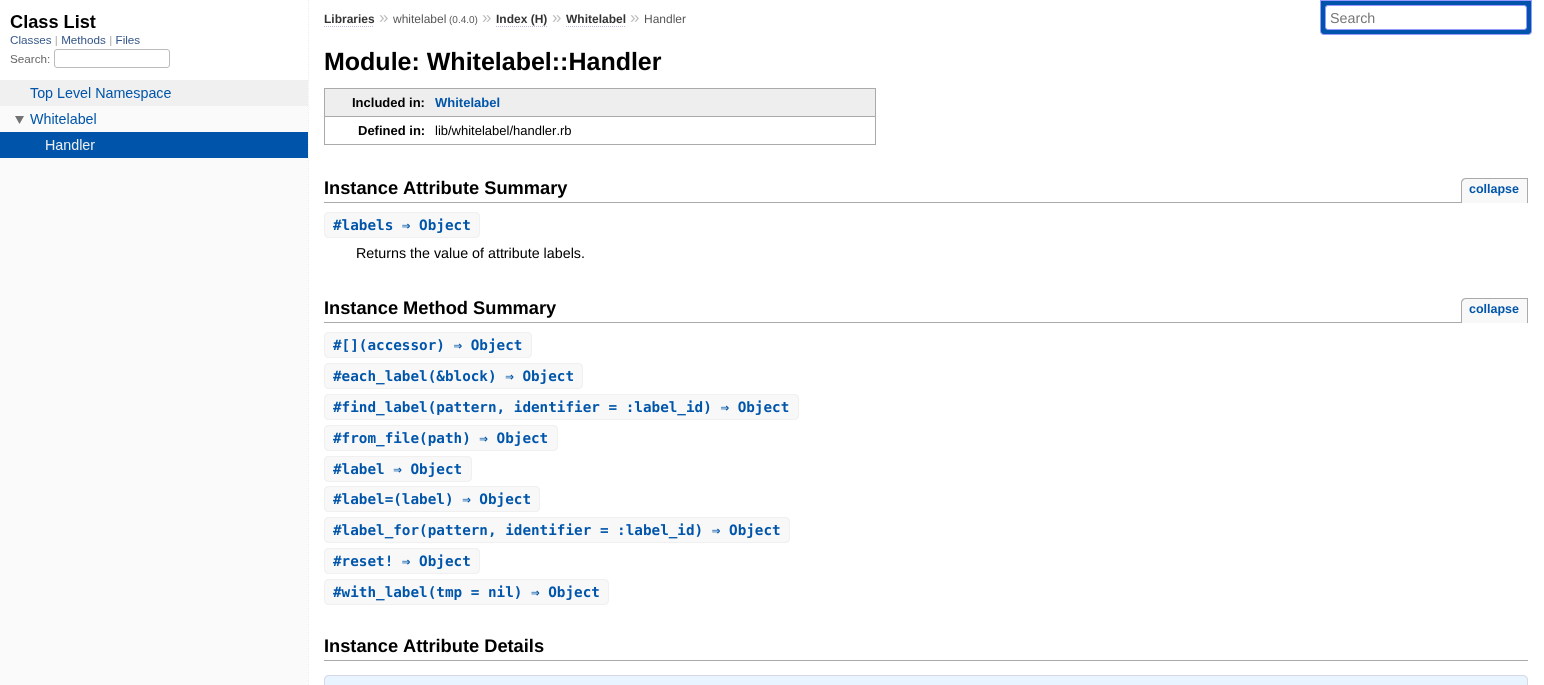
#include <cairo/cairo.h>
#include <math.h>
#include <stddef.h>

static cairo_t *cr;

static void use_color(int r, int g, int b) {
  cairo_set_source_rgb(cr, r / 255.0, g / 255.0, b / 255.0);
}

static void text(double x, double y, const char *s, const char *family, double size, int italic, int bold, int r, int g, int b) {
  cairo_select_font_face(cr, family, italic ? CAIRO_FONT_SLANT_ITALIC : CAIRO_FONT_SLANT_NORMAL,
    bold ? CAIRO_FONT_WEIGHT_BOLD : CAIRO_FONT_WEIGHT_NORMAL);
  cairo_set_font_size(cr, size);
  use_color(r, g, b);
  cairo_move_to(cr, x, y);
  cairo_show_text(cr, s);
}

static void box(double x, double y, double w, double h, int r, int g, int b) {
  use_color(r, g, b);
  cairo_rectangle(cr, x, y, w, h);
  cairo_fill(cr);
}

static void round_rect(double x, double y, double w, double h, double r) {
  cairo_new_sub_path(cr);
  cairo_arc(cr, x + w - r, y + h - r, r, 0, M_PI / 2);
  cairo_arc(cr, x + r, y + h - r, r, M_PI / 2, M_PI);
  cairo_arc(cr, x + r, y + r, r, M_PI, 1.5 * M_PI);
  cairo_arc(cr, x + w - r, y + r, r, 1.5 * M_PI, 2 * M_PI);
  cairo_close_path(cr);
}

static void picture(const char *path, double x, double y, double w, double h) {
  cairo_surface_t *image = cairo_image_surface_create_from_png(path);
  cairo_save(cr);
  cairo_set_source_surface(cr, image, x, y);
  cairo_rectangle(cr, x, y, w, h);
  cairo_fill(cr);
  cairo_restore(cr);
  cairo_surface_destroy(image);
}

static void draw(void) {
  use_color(255, 255, 255);
  cairo_paint(cr);
  cairo_new_path(cr);
  cairo_move_to(cr, 308.5, 0);
  cairo_line_to(cr, 308.5, 685);
  use_color(238, 238, 238);
  cairo_set_line_width(cr, 1);
  cairo_set_dash(cr, (double[]){1, 1}, 2, 0);
  cairo_stroke(cr);
  picture("img_01.png", 0, 15, 308, 670);
  cairo_new_path(cr);
  cairo_move_to(cr, 324, 26.5);
  cairo_line_to(cr, 374, 26.5);
  use_color(187, 187, 221);
  cairo_stroke(cr);
  cairo_new_path(cr);
  cairo_move_to(cr, 496, 26.5);
  cairo_line_to(cr, 547, 26.5);
  cairo_stroke(cr);
  cairo_new_path(cr);
  cairo_move_to(cr, 566, 26.5);
  cairo_line_to(cr, 625, 26.5);
  cairo_stroke(cr);
  use_color(0, 85, 170);
  cairo_new_path(cr);
  cairo_move_to(cr, 1320.5, 0.5);
  cairo_line_to(cr, 1531.5, 0.5);
  cairo_line_to(cr, 1531.5, 31);
  cairo_curve_to(cr, 1531.5, 33, 1530, 34.5, 1528, 34.5);
  cairo_line_to(cr, 1324, 34.5);
  cairo_curve_to(cr, 1322, 34.5, 1320.5, 33, 1320.5, 31);
  cairo_close_path(cr);
  cairo_fill_preserve(cr);
  use_color(153, 153, 255);
  cairo_set_dash(cr, NULL, 0, 0);
  cairo_stroke(cr);
  use_color(255, 255, 255);
  round_rect(1325.5, 5.5, 201, 24, 2.5);
  cairo_fill_preserve(cr);
  use_color(153, 153, 255);
  cairo_stroke(cr);
  box(325, 89, 550, 27, 238, 238, 238);
  box(324, 88, 552, 1, 170, 170, 170);
  box(324, 88, 1, 28, 170, 170, 170);
  box(324, 116, 552, 1, 170, 170, 170);
  box(875, 88, 1, 57, 170, 170, 170);
  box(324, 144, 111, 1, 170, 170, 170);
  box(324, 116, 1, 29, 170, 170, 170);
  box(435, 144, 441, 1, 170, 170, 170);
  box(324, 202, 1137, 1, 170, 170, 170);
  use_color(248, 248, 248);
  cairo_new_path(cr);
  cairo_move_to(cr, 1466, 178);
  cairo_line_to(cr, 1528, 178);
  cairo_line_to(cr, 1528, 203);
  cairo_line_to(cr, 1461, 203);
  cairo_line_to(cr, 1461, 183);
  cairo_curve_to(cr, 1461, 180, 1463, 178, 1466, 178);
  cairo_close_path(cr);
  cairo_fill(cr);
  use_color(170, 170, 170);
  cairo_set_fill_rule(cr, CAIRO_FILL_RULE_EVEN_ODD);
  cairo_new_path(cr);
  cairo_move_to(cr, 1466, 178);
  cairo_line_to(cr, 1528, 178);
  cairo_line_to(cr, 1528, 203);
  cairo_line_to(cr, 1461, 203);
  cairo_line_to(cr, 1461, 183);
  cairo_curve_to(cr, 1461, 180, 1463, 178, 1466, 178);
  cairo_close_path(cr);
  cairo_move_to(cr, 1466, 179);
  cairo_line_to(cr, 1527, 179);
  cairo_line_to(cr, 1527, 203);
  cairo_line_to(cr, 1462, 203);
  cairo_line_to(cr, 1462, 183);
  cairo_curve_to(cr, 1462, 181, 1464, 179, 1466, 179);
  cairo_close_path(cr);
  cairo_fill(cr);
  use_color(248, 248, 248);
  cairo_new_path(cr);
  cairo_move_to(cr, 329, 212);
  cairo_line_to(cr, 342, 212);
  cairo_line_to(cr, 342, 238);
  cairo_line_to(cr, 329, 238);
  cairo_curve_to(cr, 326, 238, 324, 236, 324, 233);
  cairo_line_to(cr, 324, 217);
  cairo_curve_to(cr, 324, 214, 326, 212, 329, 212);
  cairo_close_path(cr);
  cairo_fill(cr);
  use_color(240, 240, 240);
  cairo_new_path(cr);
  cairo_move_to(cr, 329, 212);
  cairo_line_to(cr, 342, 212);
  cairo_line_to(cr, 342, 238);
  cairo_line_to(cr, 329, 238);
  cairo_curve_to(cr, 326, 238, 324, 236, 324, 233);
  cairo_line_to(cr, 324, 217);
  cairo_curve_to(cr, 324, 214, 326, 212, 329, 212);
  cairo_close_path(cr);
  cairo_move_to(cr, 329, 213);
  cairo_line_to(cr, 342, 213);
  cairo_line_to(cr, 342, 237);
  cairo_line_to(cr, 329, 237);
  cairo_curve_to(cr, 327, 237, 325, 235, 325, 233);
  cairo_line_to(cr, 325, 217);
  cairo_curve_to(cr, 325, 215, 327, 213, 329, 213);
  cairo_close_path(cr);
  cairo_fill(cr);
  box(342, 213, 52, 24, 248, 248, 248);
  box(342, 212, 52, 1, 240, 240, 240);
  box(342, 237, 52, 1, 240, 240, 240);
  use_color(248, 248, 248);
  cairo_new_path(cr);
  cairo_move_to(cr, 394, 212);
  cairo_line_to(cr, 475, 212);
  cairo_curve_to(cr, 478, 212, 480, 214, 480, 217);
  cairo_line_to(cr, 480, 233);
  cairo_curve_to(cr, 480, 236, 478, 238, 475, 238);
  cairo_line_to(cr, 394, 238);
  cairo_close_path(cr);
  cairo_fill(cr);
  use_color(240, 240, 240);
  cairo_new_path(cr);
  cairo_move_to(cr, 394, 212);
  cairo_line_to(cr, 475, 212);
  cairo_curve_to(cr, 478, 212, 480, 214, 480, 217);
  cairo_line_to(cr, 480, 233);
  cairo_curve_to(cr, 480, 236, 478, 238, 475, 238);
  cairo_line_to(cr, 394, 238);
  cairo_close_path(cr);
  cairo_move_to(cr, 394, 213);
  cairo_line_to(cr, 475, 213);
  cairo_curve_to(cr, 477, 213, 479, 215, 479, 217);
  cairo_line_to(cr, 479, 233);
  cairo_curve_to(cr, 479, 235, 477, 237, 475, 237);
  cairo_line_to(cr, 394, 237);
  cairo_close_path(cr);
  cairo_fill(cr);
  box(324, 322, 1137, 1, 170, 170, 170);
  use_color(248, 248, 248);
  cairo_new_path(cr);
  cairo_move_to(cr, 1466, 298);
  cairo_line_to(cr, 1528, 298);
  cairo_line_to(cr, 1528, 323);
  cairo_line_to(cr, 1461, 323);
  cairo_line_to(cr, 1461, 303);
  cairo_curve_to(cr, 1461, 300, 1463, 298, 1466, 298);
  cairo_close_path(cr);
  cairo_fill(cr);
  use_color(170, 170, 170);
  cairo_new_path(cr);
  cairo_move_to(cr, 1466, 298);
  cairo_line_to(cr, 1528, 298);
  cairo_line_to(cr, 1528, 323);
  cairo_line_to(cr, 1461, 323);
  cairo_line_to(cr, 1461, 303);
  cairo_curve_to(cr, 1461, 300, 1463, 298, 1466, 298);
  cairo_close_path(cr);
  cairo_move_to(cr, 1466, 299);
  cairo_line_to(cr, 1527, 299);
  cairo_line_to(cr, 1527, 323);
  cairo_line_to(cr, 1462, 323);
  cairo_line_to(cr, 1462, 303);
  cairo_curve_to(cr, 1462, 301, 1464, 299, 1466, 299);
  cairo_close_path(cr);
  cairo_fill(cr);
  use_color(248, 248, 248);
  cairo_new_path(cr);
  cairo_move_to(cr, 329, 332);
  cairo_line_to(cr, 342, 332);
  cairo_line_to(cr, 342, 358);
  cairo_line_to(cr, 329, 358);
  cairo_curve_to(cr, 326, 358, 324, 356, 324, 353);
  cairo_line_to(cr, 324, 337);
  cairo_curve_to(cr, 324, 334, 326, 332, 329, 332);
  cairo_close_path(cr);
  cairo_fill(cr);
  use_color(240, 240, 240);
  cairo_new_path(cr);
  cairo_move_to(cr, 329, 332);
  cairo_line_to(cr, 342, 332);
  cairo_line_to(cr, 342, 358);
  cairo_line_to(cr, 329, 358);
  cairo_curve_to(cr, 326, 358, 324, 356, 324, 353);
  cairo_line_to(cr, 324, 337);
  cairo_curve_to(cr, 324, 334, 326, 332, 329, 332);
  cairo_close_path(cr);
  cairo_move_to(cr, 329, 333);
  cairo_line_to(cr, 342, 333);
  cairo_line_to(cr, 342, 357);
  cairo_line_to(cr, 329, 357);
  cairo_curve_to(cr, 327, 357, 325, 355, 325, 353);
  cairo_line_to(cr, 325, 337);
  cairo_curve_to(cr, 325, 335, 327, 333, 329, 333);
  cairo_close_path(cr);
  cairo_fill(cr);
  box(342, 333, 17, 24, 248, 248, 248);
  box(342, 332, 17, 1, 240, 240, 240);
  box(342, 357, 17, 1, 240, 240, 240);
  use_color(248, 248, 248);
  cairo_new_path(cr);
  cairo_move_to(cr, 359, 332);
  cairo_line_to(cr, 527, 332);
  cairo_curve_to(cr, 530, 332, 532, 334, 532, 337);
  cairo_line_to(cr, 532, 353);
  cairo_curve_to(cr, 532, 356, 530, 358, 527, 358);
  cairo_line_to(cr, 359, 358);
  cairo_close_path(cr);
  cairo_fill(cr);
  use_color(240, 240, 240);
  cairo_new_path(cr);
  cairo_move_to(cr, 359, 332);
  cairo_line_to(cr, 527, 332);
  cairo_curve_to(cr, 530, 332, 532, 334, 532, 337);
  cairo_line_to(cr, 532, 353);
  cairo_curve_to(cr, 532, 356, 530, 358, 527, 358);
  cairo_line_to(cr, 359, 358);
  cairo_close_path(cr);
  cairo_move_to(cr, 359, 333);
  cairo_line_to(cr, 527, 333);
  cairo_curve_to(cr, 529, 333, 531, 335, 531, 337);
  cairo_line_to(cr, 531, 353);
  cairo_curve_to(cr, 531, 355, 529, 357, 527, 357);
  cairo_line_to(cr, 359, 357);
  cairo_close_path(cr);
  cairo_fill(cr);
  use_color(248, 248, 248);
  cairo_new_path(cr);
  cairo_move_to(cr, 329, 363);
  cairo_line_to(cr, 342, 363);
  cairo_line_to(cr, 342, 389);
  cairo_line_to(cr, 329, 389);
  cairo_curve_to(cr, 326, 389, 324, 387, 324, 384);
  cairo_line_to(cr, 324, 368);
  cairo_curve_to(cr, 324, 365, 326, 363, 329, 363);
  cairo_close_path(cr);
  cairo_fill(cr);
  use_color(240, 240, 240);
  cairo_new_path(cr);
  cairo_move_to(cr, 329, 363);
  cairo_line_to(cr, 342, 363);
  cairo_line_to(cr, 342, 389);
  cairo_line_to(cr, 329, 389);
  cairo_curve_to(cr, 326, 389, 324, 387, 324, 384);
  cairo_line_to(cr, 324, 368);
  cairo_curve_to(cr, 324, 365, 326, 363, 329, 363);
  cairo_close_path(cr);
  cairo_move_to(cr, 329, 364);
  cairo_line_to(cr, 342, 364);
  cairo_line_to(cr, 342, 388);
  cairo_line_to(cr, 329, 388);
  cairo_curve_to(cr, 327, 388, 325, 386, 325, 384);
  cairo_line_to(cr, 325, 368);
  cairo_curve_to(cr, 325, 366, 327, 364, 329, 364);
  cairo_close_path(cr);
  cairo_fill(cr);
  box(342, 364, 86, 24, 248, 248, 248);
  box(342, 363, 86, 1, 240, 240, 240);
  box(342, 388, 86, 1, 240, 240, 240);
  use_color(248, 248, 248);
  cairo_new_path(cr);
  cairo_move_to(cr, 428, 363);
  cairo_line_to(cr, 578, 363);
  cairo_curve_to(cr, 581, 363, 583, 365, 583, 368);
  cairo_line_to(cr, 583, 384);
  cairo_curve_to(cr, 583, 387, 581, 389, 578, 389);
  cairo_line_to(cr, 428, 389);
  cairo_close_path(cr);
  cairo_fill(cr);
  use_color(240, 240, 240);
  cairo_new_path(cr);
  cairo_move_to(cr, 428, 363);
  cairo_line_to(cr, 578, 363);
  cairo_curve_to(cr, 581, 363, 583, 365, 583, 368);
  cairo_line_to(cr, 583, 384);
  cairo_curve_to(cr, 583, 387, 581, 389, 578, 389);
  cairo_line_to(cr, 428, 389);
  cairo_close_path(cr);
  cairo_move_to(cr, 428, 364);
  cairo_line_to(cr, 578, 364);
  cairo_curve_to(cr, 580, 364, 582, 366, 582, 368);
  cairo_line_to(cr, 582, 384);
  cairo_curve_to(cr, 582, 386, 580, 388, 578, 388);
  cairo_line_to(cr, 428, 388);
  cairo_close_path(cr);
  cairo_fill(cr);
  use_color(248, 248, 248);
  cairo_new_path(cr);
  cairo_move_to(cr, 329, 394);
  cairo_line_to(cr, 342, 394);
  cairo_line_to(cr, 342, 420);
  cairo_line_to(cr, 329, 420);
  cairo_curve_to(cr, 326, 420, 324, 418, 324, 415);
  cairo_line_to(cr, 324, 399);
  cairo_curve_to(cr, 324, 396, 326, 394, 329, 394);
  cairo_close_path(cr);
  cairo_fill(cr);
  use_color(240, 240, 240);
  cairo_new_path(cr);
  cairo_move_to(cr, 329, 394);
  cairo_line_to(cr, 342, 394);
  cairo_line_to(cr, 342, 420);
  cairo_line_to(cr, 329, 420);
  cairo_curve_to(cr, 326, 420, 324, 418, 324, 415);
  cairo_line_to(cr, 324, 399);
  cairo_curve_to(cr, 324, 396, 326, 394, 329, 394);
  cairo_close_path(cr);
  cairo_move_to(cr, 329, 395);
  cairo_line_to(cr, 342, 395);
  cairo_line_to(cr, 342, 419);
  cairo_line_to(cr, 329, 419);
  cairo_curve_to(cr, 327, 419, 325, 417, 325, 415);
  cairo_line_to(cr, 325, 399);
  cairo_curve_to(cr, 325, 397, 327, 395, 329, 395);
  cairo_close_path(cr);
  cairo_fill(cr);
  box(342, 395, 86, 24, 248, 248, 248);
  box(342, 394, 86, 1, 240, 240, 240);
  box(342, 419, 86, 1, 240, 240, 240);
  use_color(248, 248, 248);
  cairo_new_path(cr);
  cairo_move_to(cr, 428, 394);
  cairo_line_to(cr, 794, 394);
  cairo_curve_to(cr, 797, 394, 799, 396, 799, 399);
  cairo_line_to(cr, 799, 415);
  cairo_curve_to(cr, 799, 418, 797, 420, 794, 420);
  cairo_line_to(cr, 428, 420);
  cairo_close_path(cr);
  cairo_fill(cr);
  use_color(240, 240, 240);
  cairo_new_path(cr);
  cairo_move_to(cr, 428, 394);
  cairo_line_to(cr, 794, 394);
  cairo_curve_to(cr, 797, 394, 799, 396, 799, 399);
  cairo_line_to(cr, 799, 415);
  cairo_curve_to(cr, 799, 418, 797, 420, 794, 420);
  cairo_line_to(cr, 428, 420);
  cairo_close_path(cr);
  cairo_move_to(cr, 428, 395);
  cairo_line_to(cr, 794, 395);
  cairo_curve_to(cr, 796, 395, 798, 397, 798, 399);
  cairo_line_to(cr, 798, 415);
  cairo_curve_to(cr, 798, 417, 796, 419, 794, 419);
  cairo_line_to(cr, 428, 419);
  cairo_close_path(cr);
  cairo_fill(cr);
  use_color(248, 248, 248);
  cairo_new_path(cr);
  cairo_move_to(cr, 329, 425);
  cairo_line_to(cr, 342, 425);
  cairo_line_to(cr, 342, 451);
  cairo_line_to(cr, 329, 451);
  cairo_curve_to(cr, 326, 451, 324, 449, 324, 446);
  cairo_line_to(cr, 324, 430);
  cairo_curve_to(cr, 324, 427, 326, 425, 329, 425);
  cairo_close_path(cr);
  cairo_fill(cr);
  use_color(240, 240, 240);
  cairo_new_path(cr);
  cairo_move_to(cr, 329, 425);
  cairo_line_to(cr, 342, 425);
  cairo_line_to(cr, 342, 451);
  cairo_line_to(cr, 329, 451);
  cairo_curve_to(cr, 326, 451, 324, 449, 324, 446);
  cairo_line_to(cr, 324, 430);
  cairo_curve_to(cr, 324, 427, 326, 425, 329, 425);
  cairo_close_path(cr);
  cairo_move_to(cr, 329, 426);
  cairo_line_to(cr, 342, 426);
  cairo_line_to(cr, 342, 450);
  cairo_line_to(cr, 329, 450);
  cairo_curve_to(cr, 327, 450, 325, 448, 325, 446);
  cairo_line_to(cr, 325, 430);
  cairo_curve_to(cr, 325, 428, 327, 426, 329, 426);
  cairo_close_path(cr);
  cairo_fill(cr);
  box(342, 426, 77, 24, 248, 248, 248);
  box(342, 425, 77, 1, 240, 240, 240);
  box(342, 450, 77, 1, 240, 240, 240);
  use_color(248, 248, 248);
  cairo_new_path(cr);
  cairo_move_to(cr, 419, 425);
  cairo_line_to(cr, 553, 425);
  cairo_curve_to(cr, 556, 425, 558, 427, 558, 430);
  cairo_line_to(cr, 558, 446);
  cairo_curve_to(cr, 558, 449, 556, 451, 553, 451);
  cairo_line_to(cr, 419, 451);
  cairo_close_path(cr);
  cairo_fill(cr);
  use_color(240, 240, 240);
  cairo_new_path(cr);
  cairo_move_to(cr, 419, 425);
  cairo_line_to(cr, 553, 425);
  cairo_curve_to(cr, 556, 425, 558, 427, 558, 430);
  cairo_line_to(cr, 558, 446);
  cairo_curve_to(cr, 558, 449, 556, 451, 553, 451);
  cairo_line_to(cr, 419, 451);
  cairo_close_path(cr);
  cairo_move_to(cr, 419, 426);
  cairo_line_to(cr, 553, 426);
  cairo_curve_to(cr, 555, 426, 557, 428, 557, 430);
  cairo_line_to(cr, 557, 446);
  cairo_curve_to(cr, 557, 448, 555, 450, 553, 450);
  cairo_line_to(cr, 419, 450);
  cairo_close_path(cr);
  cairo_fill(cr);
  use_color(248, 248, 248);
  cairo_new_path(cr);
  cairo_move_to(cr, 329, 456);
  cairo_line_to(cr, 342, 456);
  cairo_line_to(cr, 342, 482);
  cairo_line_to(cr, 329, 482);
  cairo_curve_to(cr, 326, 482, 324, 480, 324, 477);
  cairo_line_to(cr, 324, 461);
  cairo_curve_to(cr, 324, 458, 326, 456, 329, 456);
  cairo_close_path(cr);
  cairo_fill(cr);
  use_color(240, 240, 240);
  cairo_new_path(cr);
  cairo_move_to(cr, 329, 456);
  cairo_line_to(cr, 342, 456);
  cairo_line_to(cr, 342, 482);
  cairo_line_to(cr, 329, 482);
  cairo_curve_to(cr, 326, 482, 324, 480, 324, 477);
  cairo_line_to(cr, 324, 461);
  cairo_curve_to(cr, 324, 458, 326, 456, 329, 456);
  cairo_close_path(cr);
  cairo_move_to(cr, 329, 457);
  cairo_line_to(cr, 342, 457);
  cairo_line_to(cr, 342, 481);
  cairo_line_to(cr, 329, 481);
  cairo_curve_to(cr, 327, 481, 325, 479, 325, 477);
  cairo_line_to(cr, 325, 461);
  cairo_curve_to(cr, 325, 459, 327, 457, 329, 457);
  cairo_close_path(cr);
  cairo_fill(cr);
  box(342, 457, 43, 24, 248, 248, 248);
  box(342, 456, 43, 1, 240, 240, 240);
  box(342, 481, 43, 1, 240, 240, 240);
  use_color(248, 248, 248);
  cairo_new_path(cr);
  cairo_move_to(cr, 385, 456);
  cairo_line_to(cr, 467, 456);
  cairo_curve_to(cr, 470, 456, 472, 458, 472, 461);
  cairo_line_to(cr, 472, 477);
  cairo_curve_to(cr, 472, 480, 470, 482, 467, 482);
  cairo_line_to(cr, 385, 482);
  cairo_close_path(cr);
  cairo_fill(cr);
  use_color(240, 240, 240);
  cairo_new_path(cr);
  cairo_move_to(cr, 385, 456);
  cairo_line_to(cr, 467, 456);
  cairo_curve_to(cr, 470, 456, 472, 458, 472, 461);
  cairo_line_to(cr, 472, 477);
  cairo_curve_to(cr, 472, 480, 470, 482, 467, 482);
  cairo_line_to(cr, 385, 482);
  cairo_close_path(cr);
  cairo_move_to(cr, 385, 457);
  cairo_line_to(cr, 467, 457);
  cairo_curve_to(cr, 469, 457, 471, 459, 471, 461);
  cairo_line_to(cr, 471, 477);
  cairo_curve_to(cr, 471, 479, 469, 481, 467, 481);
  cairo_line_to(cr, 385, 481);
  cairo_close_path(cr);
  cairo_fill(cr);
  use_color(248, 248, 248);
  cairo_new_path(cr);
  cairo_move_to(cr, 329, 486);
  cairo_line_to(cr, 342, 486);
  cairo_line_to(cr, 342, 512);
  cairo_line_to(cr, 329, 512);
  cairo_curve_to(cr, 326, 512, 324, 510, 324, 507);
  cairo_line_to(cr, 324, 491);
  cairo_curve_to(cr, 324, 488, 326, 486, 329, 486);
  cairo_close_path(cr);
  cairo_fill(cr);
  use_color(240, 240, 240);
  cairo_new_path(cr);
  cairo_move_to(cr, 329, 486);
  cairo_line_to(cr, 342, 486);
  cairo_line_to(cr, 342, 512);
  cairo_line_to(cr, 329, 512);
  cairo_curve_to(cr, 326, 512, 324, 510, 324, 507);
  cairo_line_to(cr, 324, 491);
  cairo_curve_to(cr, 324, 488, 326, 486, 329, 486);
  cairo_close_path(cr);
  cairo_move_to(cr, 329, 487);
  cairo_line_to(cr, 342, 487);
  cairo_line_to(cr, 342, 511);
  cairo_line_to(cr, 329, 511);
  cairo_curve_to(cr, 327, 511, 325, 509, 325, 507);
  cairo_line_to(cr, 325, 491);
  cairo_curve_to(cr, 325, 489, 327, 487, 329, 487);
  cairo_close_path(cr);
  cairo_fill(cr);
  box(342, 487, 52, 24, 248, 248, 248);
  box(342, 486, 52, 1, 240, 240, 240);
  box(342, 511, 52, 1, 240, 240, 240);
  use_color(248, 248, 248);
  cairo_new_path(cr);
  cairo_move_to(cr, 394, 486);
  cairo_line_to(cr, 535, 486);
  cairo_curve_to(cr, 538, 486, 540, 488, 540, 491);
  cairo_line_to(cr, 540, 507);
  cairo_curve_to(cr, 540, 510, 538, 512, 535, 512);
  cairo_line_to(cr, 394, 512);
  cairo_close_path(cr);
  cairo_fill(cr);
  use_color(240, 240, 240);
  cairo_new_path(cr);
  cairo_move_to(cr, 394, 486);
  cairo_line_to(cr, 535, 486);
  cairo_curve_to(cr, 538, 486, 540, 488, 540, 491);
  cairo_line_to(cr, 540, 507);
  cairo_curve_to(cr, 540, 510, 538, 512, 535, 512);
  cairo_line_to(cr, 394, 512);
  cairo_close_path(cr);
  cairo_move_to(cr, 394, 487);
  cairo_line_to(cr, 535, 487);
  cairo_curve_to(cr, 537, 487, 539, 489, 539, 491);
  cairo_line_to(cr, 539, 507);
  cairo_curve_to(cr, 539, 509, 537, 511, 535, 511);
  cairo_line_to(cr, 394, 511);
  cairo_close_path(cr);
  cairo_fill(cr);
  use_color(248, 248, 248);
  cairo_new_path(cr);
  cairo_move_to(cr, 329, 517);
  cairo_line_to(cr, 342, 517);
  cairo_line_to(cr, 342, 543);
  cairo_line_to(cr, 329, 543);
  cairo_curve_to(cr, 326, 543, 324, 541, 324, 538);
  cairo_line_to(cr, 324, 522);
  cairo_curve_to(cr, 324, 519, 326, 517, 329, 517);
  cairo_close_path(cr);
  cairo_fill(cr);
  use_color(240, 240, 240);
  cairo_new_path(cr);
  cairo_move_to(cr, 329, 517);
  cairo_line_to(cr, 342, 517);
  cairo_line_to(cr, 342, 543);
  cairo_line_to(cr, 329, 543);
  cairo_curve_to(cr, 326, 543, 324, 541, 324, 538);
  cairo_line_to(cr, 324, 522);
  cairo_curve_to(cr, 324, 519, 326, 517, 329, 517);
  cairo_close_path(cr);
  cairo_move_to(cr, 329, 518);
  cairo_line_to(cr, 342, 518);
  cairo_line_to(cr, 342, 542);
  cairo_line_to(cr, 329, 542);
  cairo_curve_to(cr, 327, 542, 325, 540, 325, 538);
  cairo_line_to(cr, 325, 522);
  cairo_curve_to(cr, 325, 520, 327, 518, 329, 518);
  cairo_close_path(cr);
  cairo_fill(cr);
  box(342, 518, 77, 24, 248, 248, 248);
  box(342, 517, 77, 1, 240, 240, 240);
  box(342, 542, 77, 1, 240, 240, 240);
  use_color(248, 248, 248);
  cairo_new_path(cr);
  cairo_move_to(cr, 419, 517);
  cairo_line_to(cr, 785, 517);
  cairo_curve_to(cr, 788, 517, 790, 519, 790, 522);
  cairo_line_to(cr, 790, 538);
  cairo_curve_to(cr, 790, 541, 788, 543, 785, 543);
  cairo_line_to(cr, 419, 543);
  cairo_close_path(cr);
  cairo_fill(cr);
  use_color(240, 240, 240);
  cairo_new_path(cr);
  cairo_move_to(cr, 419, 517);
  cairo_line_to(cr, 785, 517);
  cairo_curve_to(cr, 788, 517, 790, 519, 790, 522);
  cairo_line_to(cr, 790, 538);
  cairo_curve_to(cr, 790, 541, 788, 543, 785, 543);
  cairo_line_to(cr, 419, 543);
  cairo_close_path(cr);
  cairo_move_to(cr, 419, 518);
  cairo_line_to(cr, 785, 518);
  cairo_curve_to(cr, 787, 518, 789, 520, 789, 522);
  cairo_line_to(cr, 789, 538);
  cairo_curve_to(cr, 789, 540, 787, 542, 785, 542);
  cairo_line_to(cr, 419, 542);
  cairo_close_path(cr);
  cairo_fill(cr);
  use_color(248, 248, 248);
  cairo_new_path(cr);
  cairo_move_to(cr, 329, 548);
  cairo_line_to(cr, 342, 548);
  cairo_line_to(cr, 342, 574);
  cairo_line_to(cr, 329, 574);
  cairo_curve_to(cr, 326, 574, 324, 572, 324, 569);
  cairo_line_to(cr, 324, 553);
  cairo_curve_to(cr, 324, 550, 326, 548, 329, 548);
  cairo_close_path(cr);
  cairo_fill(cr);
  use_color(240, 240, 240);
  cairo_new_path(cr);
  cairo_move_to(cr, 329, 548);
  cairo_line_to(cr, 342, 548);
  cairo_line_to(cr, 342, 574);
  cairo_line_to(cr, 329, 574);
  cairo_curve_to(cr, 326, 574, 324, 572, 324, 569);
  cairo_line_to(cr, 324, 553);
  cairo_curve_to(cr, 324, 550, 326, 548, 329, 548);
  cairo_close_path(cr);
  cairo_move_to(cr, 329, 549);
  cairo_line_to(cr, 342, 549);
  cairo_line_to(cr, 342, 573);
  cairo_line_to(cr, 329, 573);
  cairo_curve_to(cr, 327, 573, 325, 571, 325, 569);
  cairo_line_to(cr, 325, 553);
  cairo_curve_to(cr, 325, 551, 327, 549, 329, 549);
  cairo_close_path(cr);
  cairo_fill(cr);
  box(342, 549, 52, 24, 248, 248, 248);
  box(342, 548, 52, 1, 240, 240, 240);
  box(342, 573, 52, 1, 240, 240, 240);
  use_color(248, 248, 248);
  cairo_new_path(cr);
  cairo_move_to(cr, 394, 548);
  cairo_line_to(cr, 475, 548);
  cairo_curve_to(cr, 478, 548, 480, 550, 480, 553);
  cairo_line_to(cr, 480, 569);
  cairo_curve_to(cr, 480, 572, 478, 574, 475, 574);
  cairo_line_to(cr, 394, 574);
  cairo_close_path(cr);
  cairo_fill(cr);
  use_color(240, 240, 240);
  cairo_new_path(cr);
  cairo_move_to(cr, 394, 548);
  cairo_line_to(cr, 475, 548);
  cairo_curve_to(cr, 478, 548, 480, 550, 480, 553);
  cairo_line_to(cr, 480, 569);
  cairo_curve_to(cr, 480, 572, 478, 574, 475, 574);
  cairo_line_to(cr, 394, 574);
  cairo_close_path(cr);
  cairo_move_to(cr, 394, 549);
  cairo_line_to(cr, 475, 549);
  cairo_curve_to(cr, 477, 549, 479, 551, 479, 553);
  cairo_line_to(cr, 479, 569);
  cairo_curve_to(cr, 479, 571, 477, 573, 475, 573);
  cairo_line_to(cr, 394, 573);
  cairo_close_path(cr);
  cairo_fill(cr);
  use_color(248, 248, 248);
  cairo_new_path(cr);
  cairo_move_to(cr, 329, 579);
  cairo_line_to(cr, 342, 579);
  cairo_line_to(cr, 342, 605);
  cairo_line_to(cr, 329, 605);
  cairo_curve_to(cr, 326, 605, 324, 603, 324, 600);
  cairo_line_to(cr, 324, 584);
  cairo_curve_to(cr, 324, 581, 326, 579, 329, 579);
  cairo_close_path(cr);
  cairo_fill(cr);
  use_color(240, 240, 240);
  cairo_new_path(cr);
  cairo_move_to(cr, 329, 579);
  cairo_line_to(cr, 342, 579);
  cairo_line_to(cr, 342, 605);
  cairo_line_to(cr, 329, 605);
  cairo_curve_to(cr, 326, 605, 324, 603, 324, 600);
  cairo_line_to(cr, 324, 584);
  cairo_curve_to(cr, 324, 581, 326, 579, 329, 579);
  cairo_close_path(cr);
  cairo_move_to(cr, 329, 580);
  cairo_line_to(cr, 342, 580);
  cairo_line_to(cr, 342, 604);
  cairo_line_to(cr, 329, 604);
  cairo_curve_to(cr, 327, 604, 325, 602, 325, 600);
  cairo_line_to(cr, 325, 584);
  cairo_curve_to(cr, 325, 582, 327, 580, 329, 580);
  cairo_close_path(cr);
  cairo_fill(cr);
  box(342, 580, 86, 24, 248, 248, 248);
  box(342, 579, 86, 1, 240, 240, 240);
  box(342, 604, 86, 1, 240, 240, 240);
  use_color(248, 248, 248);
  cairo_new_path(cr);
  cairo_move_to(cr, 428, 579);
  cairo_line_to(cr, 604, 579);
  cairo_curve_to(cr, 607, 579, 609, 581, 609, 584);
  cairo_line_to(cr, 609, 600);
  cairo_curve_to(cr, 609, 603, 607, 605, 604, 605);
  cairo_line_to(cr, 428, 605);
  cairo_close_path(cr);
  cairo_fill(cr);
  use_color(240, 240, 240);
  cairo_new_path(cr);
  cairo_move_to(cr, 428, 579);
  cairo_line_to(cr, 604, 579);
  cairo_curve_to(cr, 607, 579, 609, 581, 609, 584);
  cairo_line_to(cr, 609, 600);
  cairo_curve_to(cr, 609, 603, 607, 605, 604, 605);
  cairo_line_to(cr, 428, 605);
  cairo_close_path(cr);
  cairo_move_to(cr, 428, 580);
  cairo_line_to(cr, 604, 580);
  cairo_curve_to(cr, 606, 580, 608, 582, 608, 584);
  cairo_line_to(cr, 608, 600);
  cairo_curve_to(cr, 608, 602, 606, 604, 604, 604);
  cairo_line_to(cr, 428, 604);
  cairo_close_path(cr);
  cairo_fill(cr);
  box(324, 660, 1204, 1, 170, 170, 170);
  use_color(232, 244, 255);
  cairo_new_path(cr);
  cairo_move_to(cr, 329, 675);
  cairo_line_to(cr, 1523, 675);
  cairo_curve_to(cr, 1526, 675, 1528, 677, 1528, 680);
  cairo_line_to(cr, 1528, 685);
  cairo_line_to(cr, 324, 685);
  cairo_line_to(cr, 324, 680);
  cairo_curve_to(cr, 324, 677, 326, 675, 329, 675);
  cairo_close_path(cr);
  cairo_fill(cr);
  round_rect(324.5, 675.5, 1203, 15, 4.5);
  use_color(216, 216, 229);
  cairo_stroke(cr);
  text(324, 23, "Libraries", "Liberation Sans", 12, 0, 1, 51, 51, 51);
  text(379, 23, "»", "Liberation Sans", 17, 0, 0, 187, 187, 187);
  text(393, 23, "whitelabel", "Liberation Sans", 12, 0, 0, 85, 85, 85);
  text(449, 23, "(0.4.0)", "Liberation Sans", 10, 0, 0, 85, 85, 85);
  text(482, 23, "»", "Liberation Sans", 17, 0, 0, 187, 187, 187);
  text(496, 23, "Index (H)", "Liberation Sans", 12, 0, 1, 51, 51, 51);
  text(552, 23, "»", "Liberation Sans", 17, 0, 0, 187, 187, 187);
  text(566, 23, "Whitelabel", "Liberation Sans", 12, 0, 1, 51, 51, 51);
  text(630, 23, "»", "Liberation Sans", 17, 0, 0, 187, 187, 187);
  text(644, 23, "Handler", "Liberation Sans", 12, 0, 0, 85, 85, 85);
  text(1330, 23, "Search", "Liberation Sans", 14.3, 0, 0, 117, 117, 117);
  text(324, 70, "Module: Whitelabel::Handler", "Liberation Sans", 25, 0, 1, 0, 0, 0);
  text(352, 107, "Included in:", "Liberation Sans", 13, 0, 1, 0, 0, 0);
  text(435, 107, "Whitelabel", "Liberation Sans", 13, 0, 1, 0, 85, 170);
  text(358, 135, "Defined in:", "Liberation Sans", 13, 0, 1, 0, 0, 0);
  text(435, 135, "lib/whitelabel/handler.rb", "Liberation Sans", 13, 0, 0, 0, 0, 0);
  text(324, 194, "Instance Attribute Summary", "Liberation Sans", 18.25, 0, 1, 0, 0, 0);
  text(1469, 193, "collapse", "Liberation Sans", 12.5, 0, 1, 0, 85, 170);
  text(333, 230, "#labels ⇒ Object", "DejaVu Sans Mono", 14.3, 0, 1, 0, 85, 170);
  text(356, 258, "Returns the value of attribute labels.", "Liberation Sans", 14.3, 0, 0, 0, 0, 0);
  text(324, 314, "Instance Method Summary", "Liberation Sans", 18.25, 0, 1, 0, 0, 0);
  text(1469, 313, "collapse", "Liberation Sans", 12.5, 0, 1, 0, 85, 170);
  text(333, 350, "#[](accessor) ⇒ Object", "DejaVu Sans Mono", 14.3, 0, 1, 0, 85, 170);
  text(333, 381, "#each_label(&block) ⇒ Object", "DejaVu Sans Mono", 14.3, 0, 1, 0, 85, 170);
  text(333, 412, "#find_label(pattern, identifier = :label_id) ⇒ Object", "DejaVu Sans Mono", 14.3, 0, 1, 0, 85, 170);
  text(333, 443, "#from_file(path) ⇒ Object", "DejaVu Sans Mono", 14.3, 0, 1, 0, 85, 170);
  text(333, 474, "#label ⇒ Object", "DejaVu Sans Mono", 14.3, 0, 1, 0, 85, 170);
  text(333, 504, "#label=(label) ⇒ Object", "DejaVu Sans Mono", 14.3, 0, 1, 0, 85, 170);
  text(333, 535, "#label_for(pattern, identifier = :label_id) ⇒ Object", "DejaVu Sans Mono", 14.3, 0, 1, 0, 85, 170);
  text(333, 566, "#reset! ⇒ Object", "DejaVu Sans Mono", 14.3, 0, 1, 0, 85, 170);
  text(333, 597, "#with_label(tmp = nil) ⇒ Object", "DejaVu Sans Mono", 14.3, 0, 1, 0, 85, 170);
  text(324, 652, "Instance Attribute Details", "Liberation Sans", 18.25, 0, 1, 0, 0, 0);
}

int main(void) {
  cairo_surface_t *surface = cairo_image_surface_create(CAIRO_FORMAT_RGB24, 1544, 685);
  cr = cairo_create(surface);
  cairo_font_options_t *options = cairo_font_options_create();
  cairo_font_options_set_hint_metrics(options, CAIRO_HINT_METRICS_OFF);
  cairo_font_options_set_hint_style(options, CAIRO_HINT_STYLE_NONE);
  cairo_set_font_options(cr, options);
  cairo_set_miter_limit(cr, 4);
  draw();
  cairo_surface_write_to_png(surface, "out.png");
  cairo_font_options_destroy(options);
  cairo_destroy(cr);
  cairo_surface_destroy(surface);
  return 0;
}
